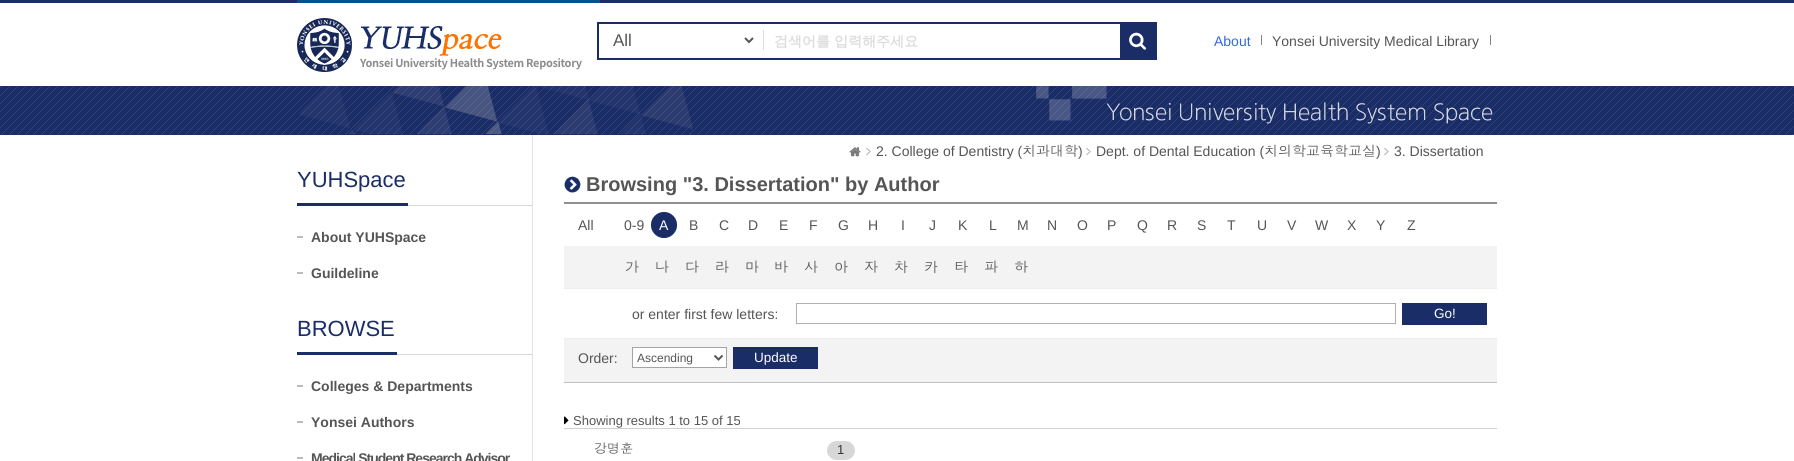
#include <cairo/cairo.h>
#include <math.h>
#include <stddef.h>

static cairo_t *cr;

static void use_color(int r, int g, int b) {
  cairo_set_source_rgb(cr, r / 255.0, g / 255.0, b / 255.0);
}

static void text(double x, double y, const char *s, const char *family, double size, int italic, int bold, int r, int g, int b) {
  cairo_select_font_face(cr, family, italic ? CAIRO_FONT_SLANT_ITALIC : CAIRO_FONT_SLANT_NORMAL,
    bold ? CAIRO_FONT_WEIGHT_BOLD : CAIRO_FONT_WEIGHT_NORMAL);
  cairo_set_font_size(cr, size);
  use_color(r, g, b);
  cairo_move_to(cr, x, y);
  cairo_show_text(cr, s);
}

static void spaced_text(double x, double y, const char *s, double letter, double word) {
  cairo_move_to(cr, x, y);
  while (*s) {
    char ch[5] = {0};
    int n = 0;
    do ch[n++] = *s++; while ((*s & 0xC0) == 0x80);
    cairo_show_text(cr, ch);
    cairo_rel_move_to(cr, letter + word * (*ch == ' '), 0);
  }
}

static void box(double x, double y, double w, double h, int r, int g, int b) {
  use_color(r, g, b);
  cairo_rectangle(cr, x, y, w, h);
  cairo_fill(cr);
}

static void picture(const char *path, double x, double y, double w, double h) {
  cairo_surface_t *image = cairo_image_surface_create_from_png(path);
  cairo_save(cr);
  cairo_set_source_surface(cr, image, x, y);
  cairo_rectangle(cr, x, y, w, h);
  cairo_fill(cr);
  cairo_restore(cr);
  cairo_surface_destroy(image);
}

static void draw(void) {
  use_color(255, 255, 255);
  cairo_paint(cr);
  box(0, 86, 1794, 49, 26, 45, 103);
  picture("img_01.png", 0, 86, 1794, 49);
  box(0, 0, 1794, 3, 26, 45, 103);
  box(297, 0, 303, 3, 6, 82, 138);
  picture("img_02.png", 297, 18, 285, 54);
  cairo_rectangle(cr, 598, 23, 558, 36);
  use_color(26, 45, 103);
  cairo_stroke(cr);
  box(763, 30, 1, 20, 221, 221, 221);
  cairo_new_path(cr);
  cairo_move_to(cr, 745, 38);
  cairo_line_to(cr, 749, 42);
  cairo_line_to(cr, 753, 38);
  use_color(85, 85, 85);
  cairo_stroke(cr);
  box(1120, 24, 35, 34, 26, 45, 103);
  picture("img_03.png", 1129, 32, 18, 18);
  box(1261, 35, 1, 10, 134, 134, 134);
  box(1490, 35, 1, 10, 134, 134, 134);
  picture("img_04.png", 299, 86, 1194, 48);
  box(532, 135, 1, 326, 227, 227, 227);
  box(408, 205, 125, 1, 216, 216, 216);
  box(297, 203, 111, 3, 26, 45, 103);
  box(297, 236, 6, 2, 188, 188, 188);
  box(297, 272, 6, 2, 188, 188, 188);
  box(397, 354, 136, 1, 216, 216, 216);
  box(297, 352, 100, 3, 26, 45, 103);
  box(297, 385, 6, 2, 188, 188, 188);
  box(297, 421, 6, 2, 188, 188, 188);
  box(297, 457, 6, 2, 188, 188, 188);
  picture("img_05.png", 849, 147, 12, 10);
  picture("img_06.png", 866, 148, 5, 7);
  picture("img_06.png", 1086, 148, 5, 7);
  picture("img_06.png", 1384, 148, 5, 7);
  picture("img_07.png", 564, 176, 17, 17);
  box(564, 202, 933, 2, 144, 144, 144);
  box(564, 382, 933, 1, 192, 192, 192);
  picture("img_08.png", 651, 212, 26, 26);
  box(564, 246, 933, 42, 243, 243, 243);
  box(564, 288, 933, 1, 236, 236, 236);
  cairo_rectangle(cr, 796.5, 303.5, 599, 20);
  use_color(176, 176, 176);
  cairo_set_line_width(cr, 1);
  cairo_stroke(cr);
  box(1402, 303, 85, 22, 26, 45, 103);
  box(564, 339, 933, 43, 243, 243, 243);
  box(564, 338, 933, 1, 236, 236, 236);
  use_color(255, 255, 255);
  cairo_rectangle(cr, 632.5, 347.5, 94, 20);
  cairo_fill_preserve(cr);
  use_color(164, 164, 164);
  cairo_stroke(cr);
  cairo_new_path(cr);
  cairo_move_to(cr, 714.5, 355.5);
  cairo_line_to(cr, 718.5, 359.5);
  cairo_line_to(cr, 722.5, 355.5);
  use_color(85, 85, 85);
  cairo_set_line_width(cr, 2);
  cairo_stroke(cr);
  box(733, 347, 85, 22, 26, 45, 103);
  picture("img_09.png", 564, 416, 5, 9);
  box(564, 428, 933, 1, 209, 209, 209);
  picture("img_10.png", 827, 441, 13, 19);
  picture("img_11.png", 840, 441, 15, 19);
  text(613, 46, "All", "Liberation Sans", 17, 0, 0, 85, 85, 85);
  text(774, 46, "검색어를 입력해주세요", "WenQuanYi Zen Hei", 14, 0, 1, 221, 221, 221);
  text(1214, 46, "About", "Liberation Sans", 14, 0, 0, 48, 104, 229);
  text(1272, 46, "Yonsei University Medical Library", "Liberation Sans", 14, 0, 0, 85, 85, 85);
  text(297, 187, "YUHSpace", "Liberation Sans", 22, 0, 0, 26, 45, 103);
  text(311, 242, "About YUHSpace", "Liberation Sans", 14, 0, 1, 85, 85, 85);
  text(311, 278, "Guildeline", "Liberation Sans", 14, 0, 1, 85, 85, 85);
  text(297, 336, "BROWSE", "Liberation Sans", 22, 0, 0, 26, 45, 103);
  text(311, 391, "Colleges & Departments", "Liberation Sans", 14, 0, 1, 85, 85, 85);
  text(311, 427, "Yonsei Authors", "Liberation Sans", 14, 0, 1, 85, 85, 85);
  spaced_text(311, 463, "Medical Student Research Advisor", -1, 0);
  text(876, 156, "2. College of Dentistry (", "Liberation Sans", 14, 0, 0, 85, 85, 85);
  text(1022, 156, "치과대학", "Dotum", 14, 0, 0, 85, 85, 85);
  text(1078, 156, ")", "Liberation Sans", 14, 0, 0, 85, 85, 85);
  text(1096, 156, "Dept. of Dental Education (", "Liberation Sans", 14, 0, 0, 85, 85, 85);
  text(1264, 156, "치의학교육학교실", "Dotum", 14, 0, 0, 85, 85, 85);
  text(1376, 156, ")", "Liberation Sans", 14, 0, 0, 85, 85, 85);
  text(1394, 156, "3. Dissertation", "Liberation Sans", 14, 0, 0, 85, 85, 85);
  text(586, 191, "Browsing \"3. Dissertation\" by Author", "Liberation Sans", 20, 0, 1, 85, 85, 85);
  text(578, 230, "All", "Liberation Sans", 14, 0, 0, 85, 85, 85);
  text(624, 230, "0-9", "Liberation Sans", 14, 0, 0, 85, 85, 85);
  text(659, 230, "A", "Liberation Sans", 14, 0, 0, 255, 255, 255);
  text(689, 230, "B", "Liberation Sans", 14, 0, 0, 85, 85, 85);
  text(719, 230, "C", "Liberation Sans", 14, 0, 0, 85, 85, 85);
  text(748, 230, "D", "Liberation Sans", 14, 0, 0, 85, 85, 85);
  text(779, 230, "E", "Liberation Sans", 14, 0, 0, 85, 85, 85);
  text(809, 230, "F", "Liberation Sans", 14, 0, 0, 85, 85, 85);
  text(838, 230, "G", "Liberation Sans", 14, 0, 0, 85, 85, 85);
  text(868, 230, "H", "Liberation Sans", 14, 0, 0, 85, 85, 85);
  text(901, 230, "I", "Liberation Sans", 14, 0, 0, 85, 85, 85);
  text(929, 230, "J", "Liberation Sans", 14, 0, 0, 85, 85, 85);
  text(958, 230, "K", "Liberation Sans", 14, 0, 0, 85, 85, 85);
  text(989, 230, "L", "Liberation Sans", 14, 0, 0, 85, 85, 85);
  text(1017, 230, "M", "Liberation Sans", 14, 0, 0, 85, 85, 85);
  text(1047, 230, "N", "Liberation Sans", 14, 0, 0, 85, 85, 85);
  text(1077, 230, "O", "Liberation Sans", 14, 0, 0, 85, 85, 85);
  text(1107, 230, "P", "Liberation Sans", 14, 0, 0, 85, 85, 85);
  text(1137, 230, "Q", "Liberation Sans", 14, 0, 0, 85, 85, 85);
  text(1167, 230, "R", "Liberation Sans", 14, 0, 0, 85, 85, 85);
  text(1197, 230, "S", "Liberation Sans", 14, 0, 0, 85, 85, 85);
  text(1227, 230, "T", "Liberation Sans", 14, 0, 0, 85, 85, 85);
  text(1257, 230, "U", "Liberation Sans", 14, 0, 0, 85, 85, 85);
  text(1287, 230, "V", "Liberation Sans", 14, 0, 0, 85, 85, 85);
  text(1315, 230, "W", "Liberation Sans", 14, 0, 0, 85, 85, 85);
  text(1347, 230, "X", "Liberation Sans", 14, 0, 0, 85, 85, 85);
  text(1376, 230, "Y", "Liberation Sans", 14, 0, 0, 85, 85, 85);
  text(1407, 230, "Z", "Liberation Sans", 14, 0, 0, 85, 85, 85);
  text(625, 272, "가", "Dotum", 14, 0, 0, 85, 85, 85);
  text(655, 272, "나", "Dotum", 14, 0, 0, 85, 85, 85);
  text(685, 272, "다", "Dotum", 14, 0, 0, 85, 85, 85);
  text(715, 272, "라", "Dotum", 14, 0, 0, 85, 85, 85);
  text(745, 272, "마", "Dotum", 14, 0, 0, 85, 85, 85);
  text(774, 272, "바", "Dotum", 14, 0, 0, 85, 85, 85);
  text(804, 272, "사", "Dotum", 14, 0, 0, 85, 85, 85);
  text(834, 272, "아", "Dotum", 14, 0, 0, 85, 85, 85);
  text(864, 272, "자", "Dotum", 14, 0, 0, 85, 85, 85);
  text(894, 272, "차", "Dotum", 14, 0, 0, 85, 85, 85);
  text(924, 272, "카", "Dotum", 14, 0, 0, 85, 85, 85);
  text(954, 272, "타", "Dotum", 14, 0, 0, 85, 85, 85);
  text(984, 272, "파", "Dotum", 14, 0, 0, 85, 85, 85);
  text(1014, 272, "하", "Dotum", 14, 0, 0, 85, 85, 85);
  text(632, 319, "or enter first few letters:", "Liberation Sans", 14, 0, 0, 85, 85, 85);
  text(1434, 318, "Go!", "Liberation Sans", 13.5, 0, 0, 255, 255, 255);
  text(578, 363, "Order:", "Liberation Sans", 14, 0, 0, 85, 85, 85);
  text(637, 362, "Ascending", "Liberation Sans", 12, 0, 0, 85, 85, 85);
  text(754, 362, "Update", "Liberation Sans", 13.5, 0, 0, 255, 255, 255);
  text(573, 425, "Showing results 1 to 15 of 15", "Liberation Sans", 13, 0, 0, 85, 85, 85);
  text(594, 453, "강명훈", "Dotum", 13, 0, 0, 85, 85, 85);
  text(837, 454, "1", "Liberation Sans", 13, 0, 0, 51, 51, 51);
}

int main(void) {
  cairo_surface_t *surface = cairo_image_surface_create(CAIRO_FORMAT_RGB24, 1794, 461);
  cr = cairo_create(surface);
  cairo_font_options_t *options = cairo_font_options_create();
  cairo_font_options_set_hint_metrics(options, CAIRO_HINT_METRICS_OFF);
  cairo_font_options_set_hint_style(options, CAIRO_HINT_STYLE_NONE);
  cairo_set_font_options(cr, options);
  cairo_set_miter_limit(cr, 4);
  draw();
  cairo_surface_write_to_png(surface, "out.png");
  cairo_font_options_destroy(options);
  cairo_destroy(cr);
  cairo_surface_destroy(surface);
  return 0;
}
